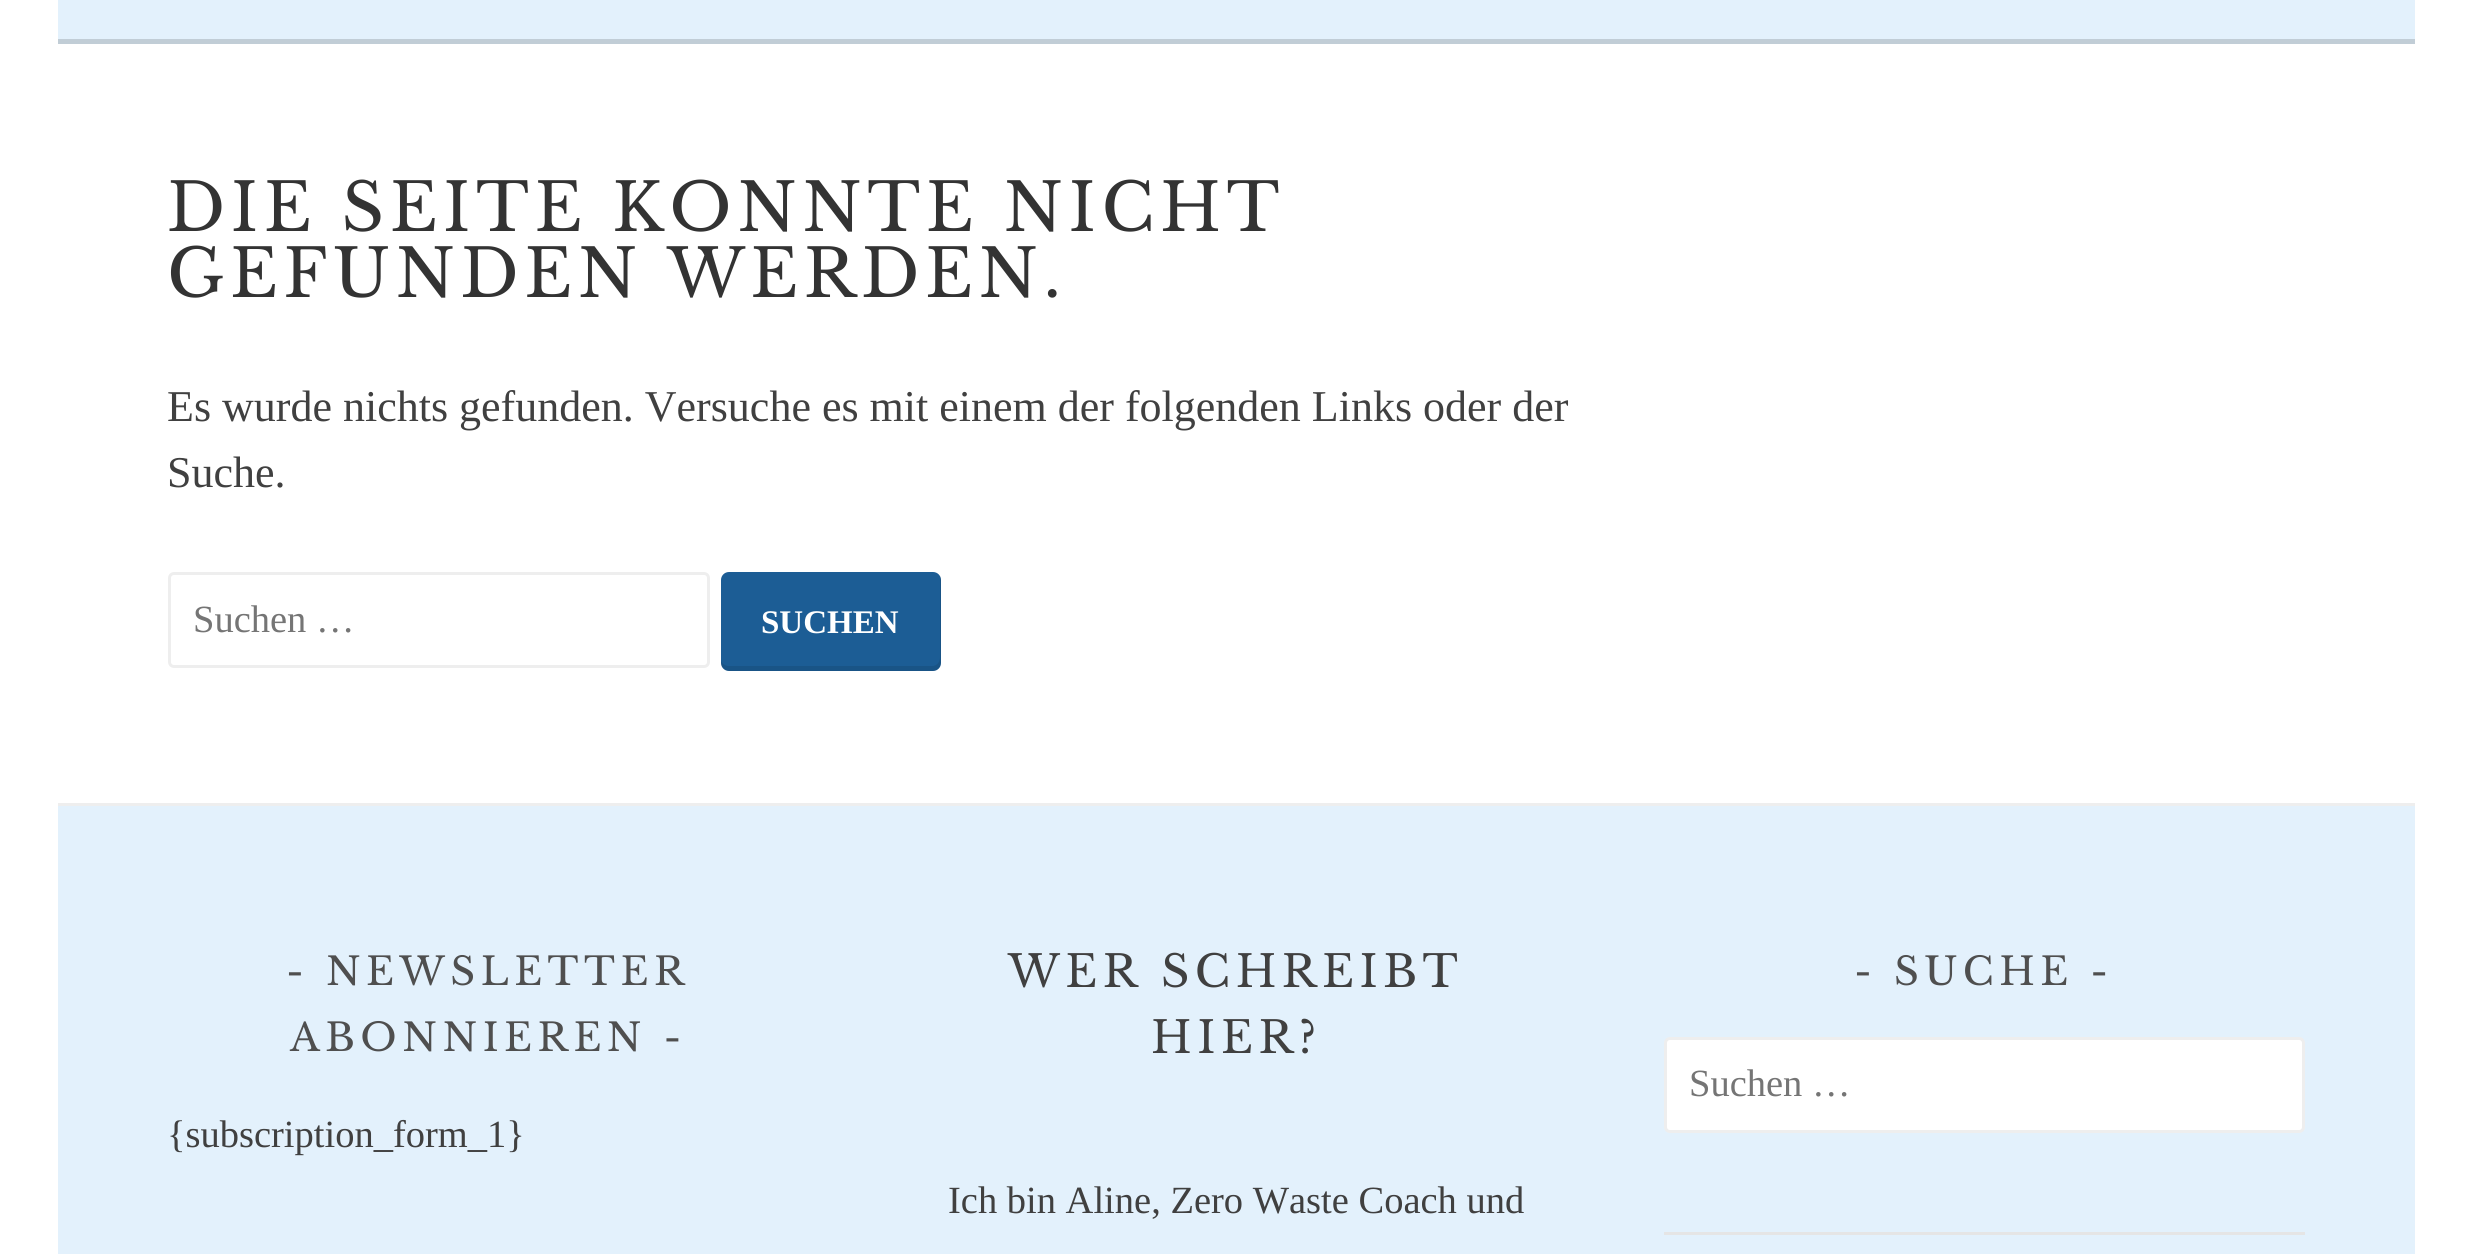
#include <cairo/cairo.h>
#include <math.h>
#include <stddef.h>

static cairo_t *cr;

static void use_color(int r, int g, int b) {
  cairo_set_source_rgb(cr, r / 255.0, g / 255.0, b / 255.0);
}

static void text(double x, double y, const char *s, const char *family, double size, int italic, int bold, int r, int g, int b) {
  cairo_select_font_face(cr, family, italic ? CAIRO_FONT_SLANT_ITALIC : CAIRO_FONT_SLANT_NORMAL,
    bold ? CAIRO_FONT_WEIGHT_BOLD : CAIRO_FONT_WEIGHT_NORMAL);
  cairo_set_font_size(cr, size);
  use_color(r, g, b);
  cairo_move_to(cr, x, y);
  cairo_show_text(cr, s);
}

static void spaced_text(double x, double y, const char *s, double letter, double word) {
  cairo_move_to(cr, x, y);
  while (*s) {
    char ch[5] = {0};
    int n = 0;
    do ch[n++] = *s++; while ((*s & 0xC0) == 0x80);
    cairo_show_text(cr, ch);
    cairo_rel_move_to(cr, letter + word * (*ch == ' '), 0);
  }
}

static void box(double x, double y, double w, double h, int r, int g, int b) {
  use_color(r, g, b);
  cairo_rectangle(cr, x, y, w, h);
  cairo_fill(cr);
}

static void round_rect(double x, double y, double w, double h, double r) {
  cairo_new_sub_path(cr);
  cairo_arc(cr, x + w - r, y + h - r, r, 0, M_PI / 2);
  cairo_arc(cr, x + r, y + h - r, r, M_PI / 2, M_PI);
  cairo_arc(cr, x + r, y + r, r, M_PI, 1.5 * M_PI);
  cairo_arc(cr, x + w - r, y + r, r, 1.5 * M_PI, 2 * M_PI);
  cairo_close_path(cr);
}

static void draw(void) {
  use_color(255, 255, 255);
  cairo_paint(cr);
  box(58, 0, 2357, 39, 227, 241, 252);
  box(58, 39, 2357, 5, 193, 205, 214);
  round_rect(169.5, 573.5, 539, 93, 4.5);
  use_color(238, 238, 238);
  cairo_set_line_width(cr, 3);
  cairo_stroke(cr);
  use_color(28, 93, 149);
  round_rect(721, 572, 220, 99, 8);
  cairo_fill(cr);
  cairo_set_source_rgba(cr, 0, 0, 0, 0.1);
  cairo_new_path(cr);
  cairo_move_to(cr, 721, 661);
  cairo_line_to(cr, 721, 663);
  cairo_curve_to(cr, 721, 667, 725, 671, 729, 671);
  cairo_line_to(cr, 933, 671);
  cairo_curve_to(cr, 937, 671, 941, 667, 941, 663);
  cairo_line_to(cr, 941, 580);
  cairo_curve_to(cr, 941, 579, 941, 577, 940, 576);
  cairo_line_to(cr, 940, 657);
  cairo_curve_to(cr, 940, 662, 937, 666, 932, 666);
  cairo_line_to(cr, 729, 666);
  cairo_curve_to(cr, 726, 666, 722, 664, 721, 661);
  cairo_close_path(cr);
  cairo_fill(cr);
  box(58, 806, 2357, 448, 227, 241, 252);
  box(58, 803, 2357, 3, 238, 238, 238);
  use_color(255, 255, 255);
  round_rect(1665.5, 1038.5, 638, 93, 4.5);
  cairo_fill_preserve(cr);
  use_color(238, 238, 238);
  cairo_stroke(cr);
  box(1664, 1232, 641, 3, 229, 229, 229);
  cairo_select_font_face(cr, "Libre Baskerville", CAIRO_FONT_SLANT_NORMAL, CAIRO_FONT_WEIGHT_NORMAL);
  cairo_set_font_size(cr, 66);
  use_color(51, 51, 51);
  spaced_text(167, 231, "DIE SEITE KONNTE NICHT", 5.5, 0);
  spaced_text(167, 297, "GEFUNDEN WERDEN.", 5.5, 0);
  text(167, 421, "Es wurde nichts gefunden. Versuche es mit einem der folgenden Links oder der", "Liberation Serif", 44, 0, 0, 64, 64, 64);
  text(167, 487, "Suche.", "Liberation Serif", 44, 0, 0, 64, 64, 64);
  text(193, 632, "Suchen …", "Liberation Serif", 38.5, 0, 0, 117, 117, 117);
  text(761, 633, "SUCHEN", "Liberation Serif", 33, 0, 1, 255, 255, 255);
  cairo_select_font_face(cr, "Libre Baskerville", CAIRO_FONT_SLANT_NORMAL, CAIRO_FONT_WEIGHT_NORMAL);
  cairo_set_font_size(cr, 38.5);
  use_color(79, 79, 79);
  spaced_text(286, 985, "- NEWSLETTER", 5.5, 0);
  spaced_text(290, 1051, "ABONNIEREN -", 5.5, 0);
  text(167, 1147, "{subscription_form_1}", "Liberation Serif", 38.5, 0, 0, 64, 64, 64);
  cairo_select_font_face(cr, "Libre Baskerville", CAIRO_FONT_SLANT_NORMAL, CAIRO_FONT_WEIGHT_NORMAL);
  cairo_set_font_size(cr, 44);
  spaced_text(1008, 987, "WER SCHREIBT", 5.5, 0);
  spaced_text(1151, 1053, "HIER?", 5.5, 0);
  text(948, 1213, "Ich bin Aline, Zero Waste Coach und", "Liberation Serif", 38.5, 0, 0, 64, 64, 64);
  cairo_select_font_face(cr, "Libre Baskerville", CAIRO_FONT_SLANT_NORMAL, CAIRO_FONT_WEIGHT_NORMAL);
  use_color(79, 79, 79);
  spaced_text(1854, 985, "- SUCHE -", 5.5, 0);
  text(1689, 1096, "Suchen …", "Liberation Serif", 38.5, 0, 0, 117, 117, 117);
}

int main(void) {
  cairo_surface_t *surface = cairo_image_surface_create(CAIRO_FORMAT_RGB24, 2470, 1254);
  cr = cairo_create(surface);
  cairo_font_options_t *options = cairo_font_options_create();
  cairo_font_options_set_hint_metrics(options, CAIRO_HINT_METRICS_OFF);
  cairo_font_options_set_hint_style(options, CAIRO_HINT_STYLE_NONE);
  cairo_set_font_options(cr, options);
  cairo_set_miter_limit(cr, 4);
  draw();
  cairo_surface_write_to_png(surface, "out.png");
  cairo_font_options_destroy(options);
  cairo_destroy(cr);
  cairo_surface_destroy(surface);
  return 0;
}
